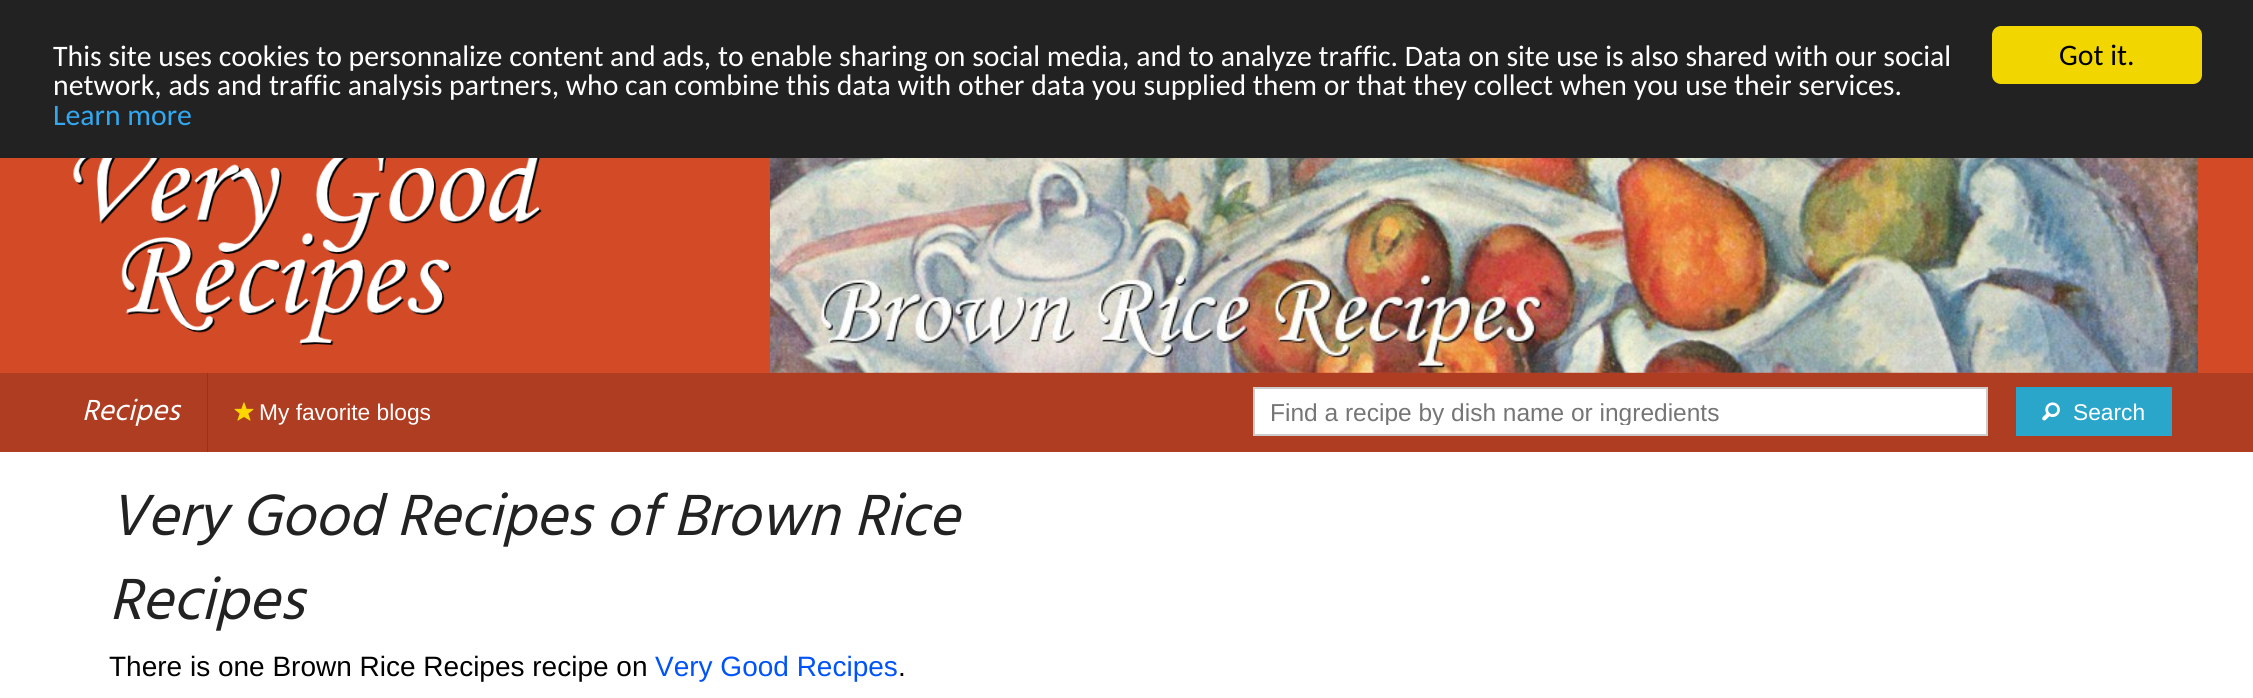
#include <cairo/cairo.h>
#include <math.h>
#include <stddef.h>

static cairo_t *cr;

static void use_color(int r, int g, int b) {
  cairo_set_source_rgb(cr, r / 255.0, g / 255.0, b / 255.0);
}

static void text(double x, double y, const char *s, const char *family, double size, int italic, int bold, int r, int g, int b) {
  cairo_select_font_face(cr, family, italic ? CAIRO_FONT_SLANT_ITALIC : CAIRO_FONT_SLANT_NORMAL,
    bold ? CAIRO_FONT_WEIGHT_BOLD : CAIRO_FONT_WEIGHT_NORMAL);
  cairo_set_font_size(cr, size);
  use_color(r, g, b);
  cairo_move_to(cr, x, y);
  cairo_show_text(cr, s);
}

static void box(double x, double y, double w, double h, int r, int g, int b) {
  use_color(r, g, b);
  cairo_rectangle(cr, x, y, w, h);
  cairo_fill(cr);
}

static void round_rect(double x, double y, double w, double h, double r) {
  cairo_new_sub_path(cr);
  cairo_arc(cr, x + w - r, y + h - r, r, 0, M_PI / 2);
  cairo_arc(cr, x + r, y + h - r, r, M_PI / 2, M_PI);
  cairo_arc(cr, x + r, y + r, r, M_PI, 1.5 * M_PI);
  cairo_arc(cr, x + w - r, y + r, r, 1.5 * M_PI, 2 * M_PI);
  cairo_close_path(cr);
}

static void picture(const char *path, double x, double y, double w, double h) {
  cairo_surface_t *image = cairo_image_surface_create_from_png(path);
  cairo_save(cr);
  cairo_set_source_surface(cr, image, x, y);
  cairo_rectangle(cr, x, y, w, h);
  cairo_fill(cr);
  cairo_restore(cr);
  cairo_surface_destroy(image);
}

static void draw(void) {
  use_color(255, 255, 255);
  cairo_paint(cr);
  box(0, 0, 2253, 158, 34, 34, 34);
  use_color(241, 214, 0);
  round_rect(1992, 26, 210, 58, 9);
  cairo_fill(cr);
  box(0, 158, 2253, 215, 211, 74, 39);
  picture("img_01.png", 73, 158, 469, 187);
  picture("img_02.png", 770, 158, 1428, 215);
  box(0, 373, 2253, 79, 175, 61, 33);
  box(207, 373, 1, 79, 78, 78, 78);
  picture("img_03.png", 234, 402, 20, 19);
  use_color(255, 255, 255);
  cairo_rectangle(cr, 1254, 388, 733, 47);
  cairo_fill_preserve(cr);
  use_color(204, 204, 204);
  cairo_stroke(cr);
  box(2016, 387, 156, 49, 43, 166, 203);
  picture("img_04.png", 2042, 402, 18, 19);
  text(53, 66, "This site uses cookies to personnalize content and ads, to enable sharing on social media, and to analyze traffic. Data on site use is also shared with our social", "Carlito", 29.75, 0, 0, 255, 255, 255);
  text(53, 95, "network, ads and traffic analysis partners, who can combine this data with other data you supplied them or that they collect when you use their services.", "Carlito", 29.75, 0, 0, 255, 255, 255);
  text(53, 125, "Learn more", "Carlito", 29.75, 0, 0, 49, 168, 240);
  text(2059, 65, "Got it.", "Carlito", 29.75, 0, 0, 0, 0, 0);
  text(82, 420, "Recipes", "Hind", 29.75, 1, 0, 255, 255, 255);
  text(259, 420, "My favorite blogs", "Liberation Sans", 22.75, 0, 0, 255, 255, 255);
  cairo_save(cr);
  cairo_rectangle(cr, 1269, 397, 703, 28);
  cairo_clip(cr);
  text(1270, 421, "Find a recipe by dish name or ingredients", "Liberation Sans", 24.5, 0, 0, 117, 117, 117);
  cairo_restore(cr);
  text(2073, 420, "Search", "Liberation Sans", 22.75, 0, 0, 255, 255, 255);
  text(109, 535, "Very Good Recipes of Brown Rice", "Hind", 59.5, 1, 0, 34, 34, 34);
  text(109, 619, "Recipes", "Hind", 59.5, 1, 0, 34, 34, 34);
  text(109, 676, "There is one Brown Rice Recipes recipe on", "Liberation Sans", 28, 0, 0, 0, 0, 0);
  text(655, 676, "Very Good Recipes", "Liberation Sans", 28, 0, 0, 0, 83, 249);
  text(898, 676, ".", "Liberation Sans", 28, 0, 0, 0, 0, 0);
}

int main(void) {
  cairo_surface_t *surface = cairo_image_surface_create(CAIRO_FORMAT_RGB24, 2253, 698);
  cr = cairo_create(surface);
  cairo_font_options_t *options = cairo_font_options_create();
  cairo_font_options_set_hint_metrics(options, CAIRO_HINT_METRICS_OFF);
  cairo_font_options_set_hint_style(options, CAIRO_HINT_STYLE_NONE);
  cairo_set_font_options(cr, options);
  cairo_set_miter_limit(cr, 4);
  draw();
  cairo_surface_write_to_png(surface, "out.png");
  cairo_font_options_destroy(options);
  cairo_destroy(cr);
  cairo_surface_destroy(surface);
  return 0;
}
